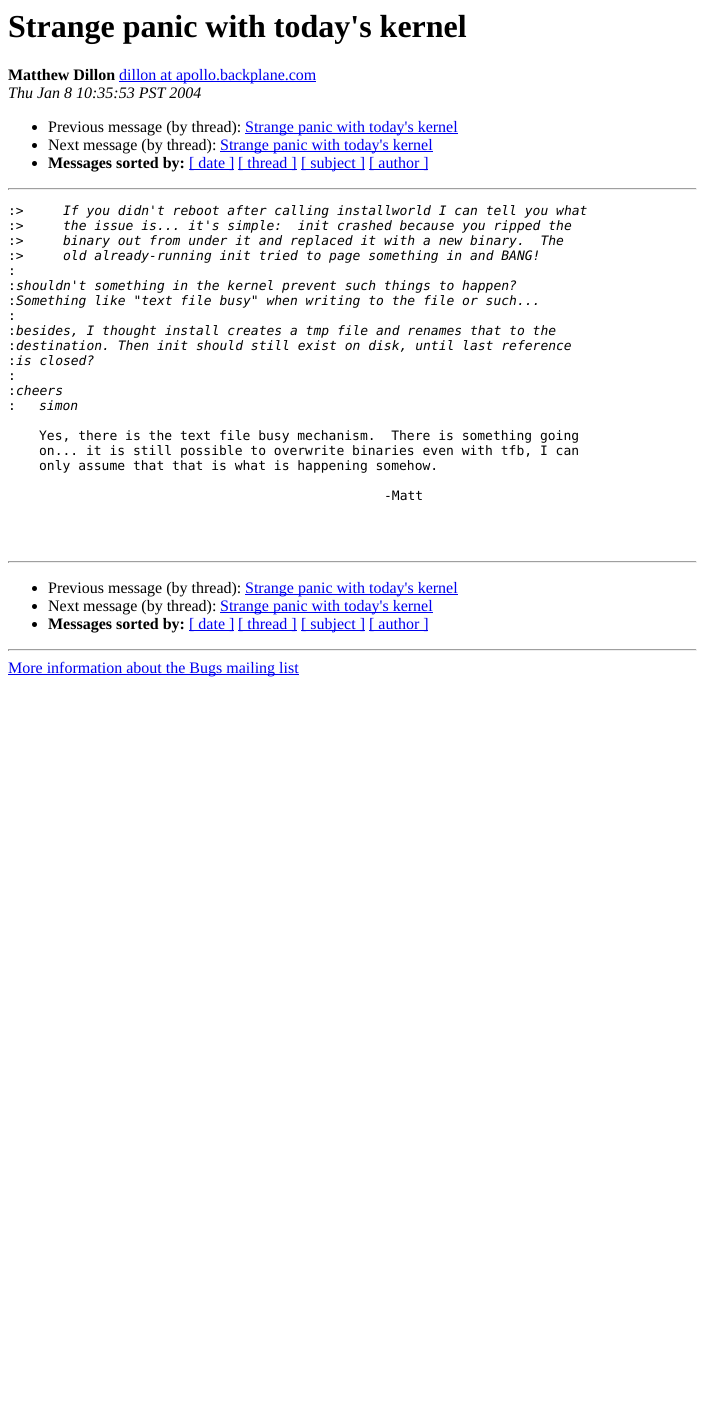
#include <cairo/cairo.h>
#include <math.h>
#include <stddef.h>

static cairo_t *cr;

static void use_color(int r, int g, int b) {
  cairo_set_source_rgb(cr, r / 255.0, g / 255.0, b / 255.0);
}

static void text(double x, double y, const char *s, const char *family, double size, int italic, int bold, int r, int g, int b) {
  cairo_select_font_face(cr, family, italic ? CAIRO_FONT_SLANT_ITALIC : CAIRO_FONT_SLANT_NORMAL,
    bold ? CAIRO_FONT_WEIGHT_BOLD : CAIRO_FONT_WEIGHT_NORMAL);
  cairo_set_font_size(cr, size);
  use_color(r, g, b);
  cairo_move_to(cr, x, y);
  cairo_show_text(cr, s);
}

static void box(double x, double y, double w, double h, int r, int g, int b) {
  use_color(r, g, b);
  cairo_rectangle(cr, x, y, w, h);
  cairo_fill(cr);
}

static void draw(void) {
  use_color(255, 255, 255);
  cairo_paint(cr);
  box(119, 81, 197, 1, 0, 0, 238);
  use_color(0, 0, 0);
  cairo_arc(cr, 34.5, 127.5, 2.5, 0, 2 * M_PI);
  cairo_fill(cr);
  box(245, 133, 213, 1, 0, 0, 238);
  use_color(0, 0, 0);
  cairo_arc(cr, 34.5, 145.5, 2.5, 0, 2 * M_PI);
  cairo_fill(cr);
  box(220, 151, 213, 1, 0, 0, 238);
  use_color(0, 0, 0);
  cairo_arc(cr, 34.5, 163.5, 2.5, 0, 2 * M_PI);
  cairo_fill(cr);
  box(189, 169, 45, 1, 0, 0, 238);
  box(238, 169, 59, 1, 0, 0, 238);
  box(301, 169, 64, 1, 0, 0, 238);
  box(369, 169, 59, 1, 0, 0, 238);
  box(8, 188, 689, 1, 159, 159, 159);
  box(696, 188, 1, 2, 238, 238, 238);
  box(8, 189, 689, 1, 238, 238, 238);
  box(8, 188, 1, 2, 159, 159, 159);
  box(8, 561, 689, 1, 159, 159, 159);
  box(696, 561, 1, 2, 238, 238, 238);
  box(8, 562, 689, 1, 238, 238, 238);
  box(8, 561, 1, 2, 159, 159, 159);
  use_color(0, 0, 0);
  cairo_arc(cr, 34.5, 588.5, 2.5, 0, 2 * M_PI);
  cairo_fill(cr);
  box(245, 594, 213, 1, 0, 0, 238);
  use_color(0, 0, 0);
  cairo_arc(cr, 34.5, 606.5, 2.5, 0, 2 * M_PI);
  cairo_fill(cr);
  box(220, 612, 213, 1, 0, 0, 238);
  use_color(0, 0, 0);
  cairo_arc(cr, 34.5, 624.5, 2.5, 0, 2 * M_PI);
  cairo_fill(cr);
  box(189, 630, 45, 1, 0, 0, 238);
  box(238, 630, 59, 1, 0, 0, 238);
  box(301, 630, 64, 1, 0, 0, 238);
  box(369, 630, 59, 1, 0, 0, 238);
  box(8, 649, 689, 1, 159, 159, 159);
  box(696, 649, 1, 2, 238, 238, 238);
  box(8, 650, 689, 1, 238, 238, 238);
  box(8, 649, 1, 2, 159, 159, 159);
  box(8, 674, 291, 1, 0, 0, 238);
  text(8, 37, "Strange panic with today's kernel", "Liberation Serif", 32, 0, 1, 0, 0, 0);
  text(8, 80, "Matthew Dillon", "Liberation Serif", 16, 0, 1, 0, 0, 0);
  text(119, 80, "dillon at apollo.backplane.com", "Liberation Serif", 16, 0, 0, 0, 0, 238);
  text(8, 98, "Thu Jan 8 10:35:53 PST 2004", "Liberation Serif", 16, 1, 0, 0, 0, 0);
  text(48, 132, "Previous message (by thread):", "Liberation Serif", 16, 0, 0, 0, 0, 0);
  text(245, 132, "Strange panic with today's kernel", "Liberation Serif", 16, 0, 0, 0, 0, 238);
  text(48, 150, "Next message (by thread):", "Liberation Serif", 16, 0, 0, 0, 0, 0);
  text(220, 150, "Strange panic with today's kernel", "Liberation Serif", 16, 0, 0, 0, 0, 238);
  text(48, 168, "Messages sorted by:", "Liberation Serif", 16, 0, 1, 0, 0, 0);
  text(189, 168, "[ date ]", "Liberation Serif", 16, 0, 0, 0, 0, 238);
  text(238, 168, "[ thread ]", "Liberation Serif", 16, 0, 0, 0, 0, 238);
  text(301, 168, "[ subject ]", "Liberation Serif", 16, 0, 0, 0, 0, 238);
  text(369, 168, "[ author ]", "Liberation Serif", 16, 0, 0, 0, 0, 238);
  text(8, 215, ":>", "DejaVu Sans Mono", 13, 0, 0, 0, 0, 0);
  text(63, 215, "If you didn't reboot after calling installworld I can tell you what", "DejaVu Sans Mono", 13, 1, 0, 0, 0, 0);
  text(8, 230, ":>", "DejaVu Sans Mono", 13, 0, 0, 0, 0, 0);
  text(63, 230, "the issue is... it's simple:  init crashed because you ripped the", "DejaVu Sans Mono", 13, 1, 0, 0, 0, 0);
  text(8, 245, ":>", "DejaVu Sans Mono", 13, 0, 0, 0, 0, 0);
  text(63, 245, "binary out from under it and replaced it with a new binary.  The", "DejaVu Sans Mono", 13, 1, 0, 0, 0, 0);
  text(8, 260, ":>", "DejaVu Sans Mono", 13, 0, 0, 0, 0, 0);
  text(63, 260, "old already-running init tried to page something in and BANG!", "DejaVu Sans Mono", 13, 1, 0, 0, 0, 0);
  text(8, 275, ":", "DejaVu Sans Mono", 13, 0, 0, 0, 0, 0);
  text(8, 290, ":", "DejaVu Sans Mono", 13, 0, 0, 0, 0, 0);
  text(16, 290, "shouldn't something in the kernel prevent such things to happen?", "DejaVu Sans Mono", 13, 1, 0, 0, 0, 0);
  text(8, 305, ":", "DejaVu Sans Mono", 13, 0, 0, 0, 0, 0);
  text(16, 305, "Something like \"text file busy\" when writing to the file or such...", "DejaVu Sans Mono", 13, 1, 0, 0, 0, 0);
  text(8, 320, ":", "DejaVu Sans Mono", 13, 0, 0, 0, 0, 0);
  text(8, 335, ":", "DejaVu Sans Mono", 13, 0, 0, 0, 0, 0);
  text(16, 335, "besides, I thought install creates a tmp file and renames that to the", "DejaVu Sans Mono", 13, 1, 0, 0, 0, 0);
  text(8, 350, ":", "DejaVu Sans Mono", 13, 0, 0, 0, 0, 0);
  text(16, 350, "destination. Then init should still exist on disk, until last reference", "DejaVu Sans Mono", 13, 1, 0, 0, 0, 0);
  text(8, 365, ":", "DejaVu Sans Mono", 13, 0, 0, 0, 0, 0);
  text(16, 365, "is closed?", "DejaVu Sans Mono", 13, 1, 0, 0, 0, 0);
  text(8, 380, ":", "DejaVu Sans Mono", 13, 0, 0, 0, 0, 0);
  text(8, 395, ":", "DejaVu Sans Mono", 13, 0, 0, 0, 0, 0);
  text(16, 395, "cheers", "DejaVu Sans Mono", 13, 1, 0, 0, 0, 0);
  text(8, 410, ":", "DejaVu Sans Mono", 13, 0, 0, 0, 0, 0);
  text(39, 410, "simon", "DejaVu Sans Mono", 13, 1, 0, 0, 0, 0);
  text(39, 440, "Yes, there is the text file busy mechanism.  There is something going", "DejaVu Sans Mono", 13, 0, 0, 0, 0, 0);
  text(39, 455, "on... it is still possible to overwrite binaries even with tfb, I can", "DejaVu Sans Mono", 13, 0, 0, 0, 0, 0);
  text(39, 470, "only assume that that is what is happening somehow.", "DejaVu Sans Mono", 13, 0, 0, 0, 0, 0);
  text(384, 500, "-Matt", "DejaVu Sans Mono", 13, 0, 0, 0, 0, 0);
  text(48, 593, "Previous message (by thread):", "Liberation Serif", 16, 0, 0, 0, 0, 0);
  text(245, 593, "Strange panic with today's kernel", "Liberation Serif", 16, 0, 0, 0, 0, 238);
  text(48, 611, "Next message (by thread):", "Liberation Serif", 16, 0, 0, 0, 0, 0);
  text(220, 611, "Strange panic with today's kernel", "Liberation Serif", 16, 0, 0, 0, 0, 238);
  text(48, 629, "Messages sorted by:", "Liberation Serif", 16, 0, 1, 0, 0, 0);
  text(189, 629, "[ date ]", "Liberation Serif", 16, 0, 0, 0, 0, 238);
  text(238, 629, "[ thread ]", "Liberation Serif", 16, 0, 0, 0, 0, 238);
  text(301, 629, "[ subject ]", "Liberation Serif", 16, 0, 0, 0, 0, 238);
  text(369, 629, "[ author ]", "Liberation Serif", 16, 0, 0, 0, 0, 238);
  text(8, 673, "More information about the Bugs mailing list", "Liberation Serif", 16, 0, 0, 0, 0, 238);
}

int main(void) {
  cairo_surface_t *surface = cairo_image_surface_create(CAIRO_FORMAT_RGB24, 705, 1405);
  cr = cairo_create(surface);
  cairo_font_options_t *options = cairo_font_options_create();
  cairo_font_options_set_hint_metrics(options, CAIRO_HINT_METRICS_OFF);
  cairo_font_options_set_hint_style(options, CAIRO_HINT_STYLE_NONE);
  cairo_set_font_options(cr, options);
  cairo_set_miter_limit(cr, 4);
  draw();
  cairo_surface_write_to_png(surface, "out.png");
  cairo_font_options_destroy(options);
  cairo_destroy(cr);
  cairo_surface_destroy(surface);
  return 0;
}
